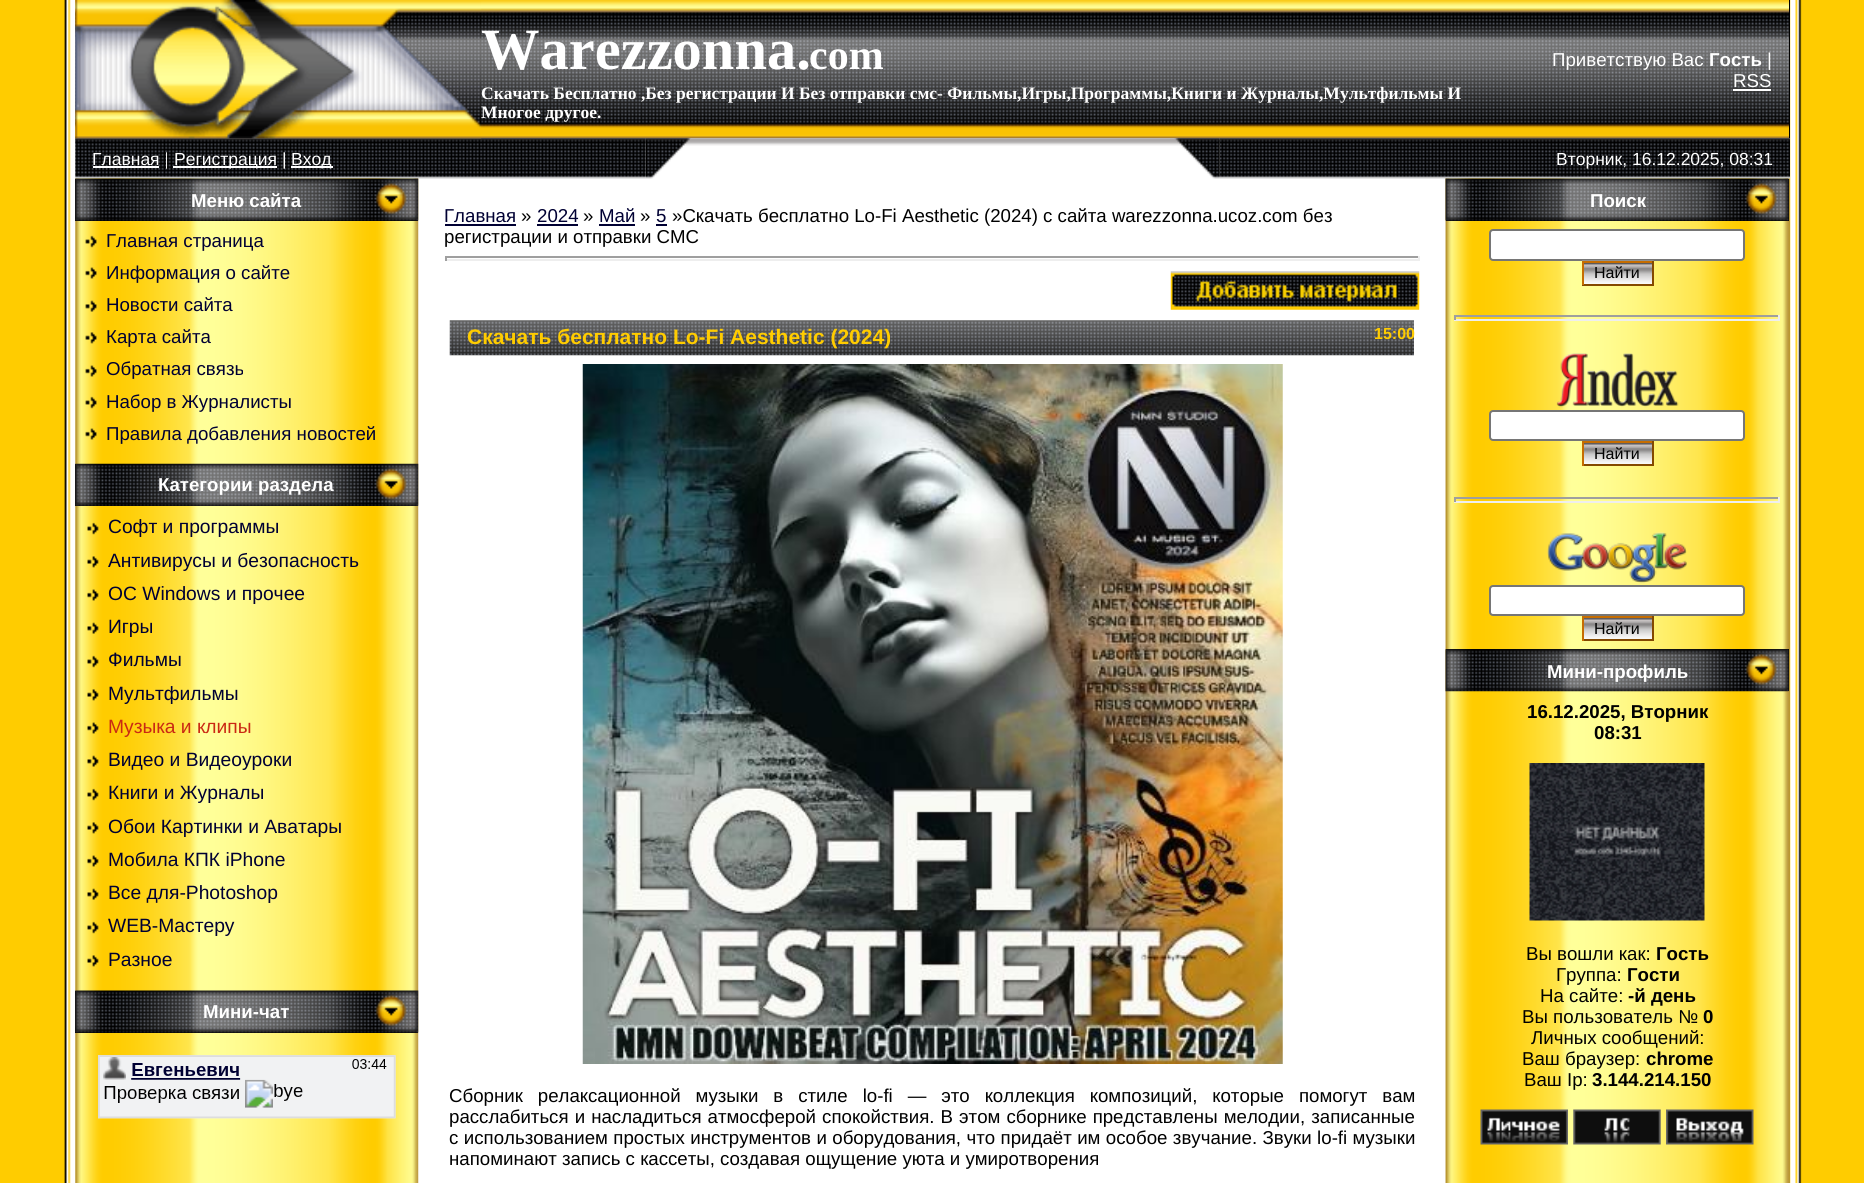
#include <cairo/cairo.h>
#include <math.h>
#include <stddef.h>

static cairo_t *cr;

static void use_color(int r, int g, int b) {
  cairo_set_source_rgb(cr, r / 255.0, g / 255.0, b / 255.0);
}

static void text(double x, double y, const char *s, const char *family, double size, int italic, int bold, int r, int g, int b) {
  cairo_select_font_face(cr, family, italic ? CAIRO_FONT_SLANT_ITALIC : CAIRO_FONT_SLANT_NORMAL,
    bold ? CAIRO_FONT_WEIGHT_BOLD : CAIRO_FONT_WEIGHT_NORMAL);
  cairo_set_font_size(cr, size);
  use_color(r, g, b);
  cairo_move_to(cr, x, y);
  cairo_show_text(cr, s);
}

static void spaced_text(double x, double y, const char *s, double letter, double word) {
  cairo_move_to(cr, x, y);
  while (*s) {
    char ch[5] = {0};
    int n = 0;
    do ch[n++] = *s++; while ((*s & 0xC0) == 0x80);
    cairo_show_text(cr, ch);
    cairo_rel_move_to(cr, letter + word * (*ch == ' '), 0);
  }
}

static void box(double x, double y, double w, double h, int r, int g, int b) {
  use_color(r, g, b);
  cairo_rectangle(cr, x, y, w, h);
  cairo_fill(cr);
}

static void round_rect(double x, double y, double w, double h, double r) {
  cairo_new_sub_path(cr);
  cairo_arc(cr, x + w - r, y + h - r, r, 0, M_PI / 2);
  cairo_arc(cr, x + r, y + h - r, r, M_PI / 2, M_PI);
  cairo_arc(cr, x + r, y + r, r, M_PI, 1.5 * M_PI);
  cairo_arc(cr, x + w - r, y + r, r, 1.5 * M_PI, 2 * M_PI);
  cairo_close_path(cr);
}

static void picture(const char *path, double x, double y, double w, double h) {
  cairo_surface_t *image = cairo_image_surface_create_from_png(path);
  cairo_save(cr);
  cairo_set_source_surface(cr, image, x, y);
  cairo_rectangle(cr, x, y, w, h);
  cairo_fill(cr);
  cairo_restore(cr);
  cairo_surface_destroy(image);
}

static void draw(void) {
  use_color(255, 255, 255);
  cairo_paint(cr);
  box(0, 0, 64, 1183, 255, 204, 0);
  picture("img_01.png", 64, 0, 11, 1183);
  picture("img_02.png", 75, 0, 1715, 139);
  box(1789, 0, 1, 138, 0, 0, 0);
  picture("img_04.png", 75, 138, 1715, 8);
  picture("img_05.png", 75, 138, 571, 41);
  picture("img_03.png", 75, 0, 407, 139);
  box(1733, 89, 38, 2, 255, 255, 255);
  box(93, 166, 66, 2, 255, 255, 255);
  box(173, 166, 104, 2, 255, 255, 255);
  box(291, 166, 42, 2, 255, 255, 255);
  picture("img_06.png", 645, 138, 46, 41);
  picture("img_08.png", 1219, 138, 571, 41);
  picture("img_07.png", 1174, 138, 46, 41);
  picture("img_09.png", 75, 178, 344, 1005);
  box(75, 179, 343, 42, 0, 0, 0);
  picture("img_10.png", 75, 178, 344, 43);
  picture("img_11.png", 85, 235, 12, 13);
  picture("img_12.png", 85, 267, 12, 12);
  picture("img_13.png", 85, 300, 12, 12);
  picture("img_14.png", 85, 332, 12, 12);
  picture("img_12.png", 85, 365, 12, 12);
  picture("img_11.png", 85, 396, 12, 13);
  picture("img_12.png", 85, 428, 12, 12);
  box(75, 464, 343, 42, 0, 0, 0);
  picture("img_15.png", 75, 463, 344, 43);
  picture("img_16.png", 87, 522, 12, 13);
  picture("img_17.png", 87, 556, 12, 12);
  picture("img_18.png", 87, 589, 12, 12);
  picture("img_19.png", 87, 622, 12, 12);
  picture("img_16.png", 87, 655, 12, 13);
  picture("img_17.png", 87, 689, 12, 12);
  picture("img_18.png", 87, 722, 12, 12);
  picture("img_19.png", 87, 755, 12, 12);
  picture("img_16.png", 87, 788, 12, 13);
  picture("img_17.png", 87, 822, 12, 12);
  picture("img_18.png", 87, 855, 12, 12);
  picture("img_19.png", 87, 888, 12, 12);
  picture("img_16.png", 87, 921, 12, 13);
  picture("img_17.png", 87, 955, 12, 12);
  box(75, 991, 343, 42, 0, 0, 0);
  picture("img_20.png", 75, 990, 344, 43);
  picture("img_21.png", 98, 1055, 298, 64);
  box(445, 224, 71, 2, 0, 0, 51);
  box(537, 224, 41, 2, 0, 0, 51);
  box(599, 224, 36, 2, 0, 0, 51);
  box(656, 224, 11, 2, 0, 0, 51);
  box(445, 256, 974, 2, 159, 159, 159);
  box(1418, 256, 2, 5, 238, 238, 238);
  box(445, 259, 974, 2, 238, 238, 238);
  box(445, 256, 2, 5, 159, 159, 159);
  picture("img_22.png", 1170, 271, 250, 39);
  picture("img_23.png", 449, 320, 965, 36);
  picture("img_24.png", 582, 364, 701, 700);
  picture("img_25.png", 1445, 178, 345, 1005);
  box(1446, 179, 343, 42, 0, 0, 0);
  picture("img_26.png", 1445, 178, 344, 43);
  use_color(255, 255, 255);
  round_rect(1490, 230, 254, 30, 3);
  cairo_fill_preserve(cr);
  use_color(118, 118, 118);
  cairo_stroke(cr);
  picture("img_27.png", 1582, 260, 72, 24);
  box(1582, 261, 72, 2, 198, 109, 0);
  box(1652, 261, 2, 24, 132, 73, 0);
  box(1582, 284, 72, 2, 132, 73, 0);
  box(1582, 261, 2, 24, 198, 109, 0);
  box(1454, 315, 326, 2, 159, 159, 159);
  box(1778, 315, 2, 5, 238, 238, 238);
  box(1454, 319, 326, 2, 238, 238, 238);
  box(1454, 315, 2, 5, 159, 159, 159);
  picture("img_28.png", 1556, 353, 123, 55);
  use_color(255, 255, 255);
  round_rect(1490, 411, 254, 29, 3);
  cairo_fill_preserve(cr);
  use_color(118, 118, 118);
  cairo_stroke(cr);
  picture("img_29.png", 1584, 443, 68, 21);
  box(1582, 441, 72, 2, 198, 109, 0);
  box(1652, 441, 2, 25, 132, 73, 0);
  box(1582, 464, 72, 2, 132, 73, 0);
  box(1582, 441, 2, 25, 198, 109, 0);
  box(1454, 497, 326, 2, 159, 159, 159);
  box(1778, 497, 2, 5, 238, 238, 238);
  box(1454, 501, 326, 2, 238, 238, 238);
  box(1454, 497, 2, 5, 159, 159, 159);
  picture("img_30.png", 1547, 532, 140, 52);
  use_color(255, 255, 255);
  round_rect(1490, 586, 254, 29, 3);
  cairo_fill_preserve(cr);
  use_color(118, 118, 118);
  cairo_stroke(cr);
  picture("img_29.png", 1584, 618, 68, 21);
  box(1582, 616, 72, 2, 198, 109, 0);
  box(1652, 616, 2, 25, 132, 73, 0);
  box(1582, 639, 72, 2, 132, 73, 0);
  box(1582, 616, 2, 25, 198, 109, 0);
  box(1446, 649, 343, 42, 0, 0, 0);
  picture("img_31.png", 1445, 649, 344, 43);
  picture("img_32.png", 1529, 763, 176, 158);
  picture("img_33.png", 1480, 1109, 88, 36);
  picture("img_34.png", 1573, 1109, 88, 36);
  picture("img_35.png", 1666, 1109, 88, 36);
  box(1790, 0, 74, 1183, 255, 204, 0);
  picture("img_36.png", 1790, 0, 12, 1183);
  text(481, 69, "Warezzonna.", "Liberation Serif", 58.5, 0, 1, 255, 255, 255);
  text(809, 69, "com", "Liberation Serif", 42, 0, 1, 255, 255, 255);
  text(481, 99, "Скачать Бесплатно ,Без регистрации И Без отправки смс- Фильмы,Игры,Программы,Книги и Журналы,Мультфильмы И", "Liberation Serif", 17.5, 0, 1, 255, 255, 255);
  text(481, 118, "Многое другое.", "Liberation Serif", 17.5, 0, 1, 255, 255, 255);
  text(1552, 66, "Приветствую Вас", "Liberation Sans", 18.67, 0, 0, 255, 255, 255);
  text(1709, 66, "Гость", "Liberation Sans", 18.67, 0, 1, 255, 255, 255);
  text(1767, 66, "|", "Liberation Sans", 18.67, 0, 0, 255, 255, 255);
  text(1733, 87, "RSS", "Liberation Sans", 18.67, 0, 0, 255, 255, 255);
  text(92, 165, "Главная |", "Liberation Sans", 17.5, 0, 0, 255, 255, 255);
  text(174, 165, "Регистрация |", "Liberation Sans", 17.5, 0, 0, 255, 255, 255);
  text(291, 165, "Вход", "Liberation Sans", 17.5, 0, 0, 255, 255, 255);
  text(1556, 165, "Вторник, 16.12.2025, 08:31", "Liberation Sans", 17.5, 0, 0, 255, 255, 255);
  text(191, 207, "Меню сайта", "Liberation Sans", 18.67, 0, 1, 255, 255, 255);
  text(106, 247, "Главная страница", "Liberation Sans", 18.67, 0, 0, 0, 0, 51);
  text(106, 279, "Информация о сайте", "Liberation Sans", 18.67, 0, 0, 0, 0, 51);
  text(106, 311, "Новости сайта", "Liberation Sans", 18.67, 0, 0, 0, 0, 51);
  text(106, 343, "Карта сайта", "Liberation Sans", 18.67, 0, 0, 0, 0, 51);
  text(106, 375, "Обратная связь", "Liberation Sans", 18.67, 0, 0, 0, 0, 51);
  text(106, 408, "Набор в Журналисты", "Liberation Sans", 18.67, 0, 0, 0, 0, 51);
  text(106, 440, "Правила добавления новостей", "Liberation Sans", 18.67, 0, 0, 0, 0, 51);
  text(158, 491, "Категории раздела", "Liberation Sans", 18.67, 0, 1, 255, 255, 255);
  text(108, 533, "Софт и программы", "Liberation Sans", 19.25, 0, 0, 0, 0, 51);
  text(108, 567, "Антивирусы и безопасность", "Liberation Sans", 19.25, 0, 0, 0, 0, 51);
  text(108, 600, "OC Windows и прочее", "Liberation Sans", 19.25, 0, 0, 0, 0, 51);
  text(108, 633, "Игры", "Liberation Sans", 19.25, 0, 0, 0, 0, 51);
  text(108, 666, "Фильмы", "Liberation Sans", 19.25, 0, 0, 0, 0, 51);
  text(108, 700, "Мультфильмы", "Liberation Sans", 19.25, 0, 0, 0, 0, 51);
  text(108, 733, "Музыка и клипы", "Liberation Sans", 19.25, 0, 0, 202, 41, 19);
  text(108, 766, "Видео и Видеоуроки", "Liberation Sans", 19.25, 0, 0, 0, 0, 51);
  text(108, 799, "Книги и Журналы", "Liberation Sans", 19.25, 0, 0, 0, 0, 51);
  text(108, 833, "Обои Картинки и Аватары", "Liberation Sans", 19.25, 0, 0, 0, 0, 51);
  text(108, 866, "Мобила КПК iPhone", "Liberation Sans", 19.25, 0, 0, 0, 0, 51);
  text(108, 899, "Все для-Photoshop", "Liberation Sans", 19.25, 0, 0, 0, 0, 51);
  text(108, 932, "WEB-Мастеру", "Liberation Sans", 19.25, 0, 0, 0, 0, 51);
  text(108, 966, "Разное", "Liberation Sans", 19.25, 0, 0, 0, 0, 51);
  text(203, 1018, "Мини-чат", "Liberation Sans", 18.67, 0, 1, 255, 255, 255);
  text(444, 222, "Главная", "Liberation Sans", 18.67, 0, 0, 0, 0, 51);
  text(521, 222, "»", "Liberation Sans", 18.67, 0, 0, 0, 0, 0);
  text(537, 222, "2024", "Liberation Sans", 18.67, 0, 0, 0, 0, 51);
  text(583, 222, "»", "Liberation Sans", 18.67, 0, 0, 0, 0, 0);
  text(599, 222, "Май", "Liberation Sans", 18.67, 0, 0, 0, 0, 51);
  text(640, 222, "»", "Liberation Sans", 18.67, 0, 0, 0, 0, 0);
  text(656, 222, "5", "Liberation Sans", 18.67, 0, 0, 0, 0, 51);
  text(672, 222, "»Скачать бесплатно Lo-Fi Aesthetic (2024) с сайта warezzonna.ucoz.com без", "Liberation Sans", 18.67, 0, 0, 0, 0, 0);
  text(444, 243, "регистрации и отправки СМС", "Liberation Sans", 18.67, 0, 0, 0, 0, 0);
  text(467, 344, "Скачать бесплатно Lo-Fi Aesthetic (2024)", "Liberation Sans", 21, 0, 1, 255, 204, 0);
  text(1374, 339, "15:00", "Liberation Sans", 16, 0, 1, 255, 204, 0);
  cairo_select_font_face(cr, "Liberation Sans", CAIRO_FONT_SLANT_NORMAL, CAIRO_FONT_WEIGHT_NORMAL);
  cairo_set_font_size(cr, 18.67);
  use_color(0, 0, 0);
  spaced_text(449, 1102, "Сборник релаксационной музыки в стиле lo-fi — это коллекция композиций, которые помогут вам", 0, 9.75);
  spaced_text(449, 1123, "расслабиться и насладиться атмосферой спокойствия. В этом сборнике представлены мелодии, записанные", 0, 0.9);
  spaced_text(449, 1144, "с использованием простых инструментов и оборудования, что придаёт им особое звучание. Звуки lo-fi музыки", 0, 0.25);
  text(449, 1165, "напоминают запись с кассеты, создавая ощущение уюта и умиротворения", "Liberation Sans", 18.67, 0, 0, 0, 0, 0);
  text(1590, 207, "Поиск", "Liberation Sans", 18.67, 0, 1, 255, 255, 255);
  text(1594, 278, "Найти", "Liberation Sans", 16, 0, 0, 0, 0, 0);
  text(1594, 459, "Найти", "Liberation Sans", 16, 0, 0, 0, 0, 0);
  text(1594, 634, "Найти", "Liberation Sans", 16, 0, 0, 0, 0, 0);
  text(1547, 678, "Мини-профиль", "Liberation Sans", 18.67, 0, 1, 255, 255, 255);
  text(1527, 718, "16.12.2025, Вторник", "Liberation Sans", 18.67, 0, 1, 0, 0, 0);
  text(1594, 739, "08:31", "Liberation Sans", 18.67, 0, 1, 0, 0, 0);
  text(1526, 960, "Вы вошли как:", "Liberation Sans", 18.67, 0, 0, 0, 0, 0);
  text(1656, 960, "Гость", "Liberation Sans", 18.67, 0, 1, 0, 0, 0);
  text(1556, 981, "Группа:", "Liberation Sans", 18.67, 0, 0, 0, 0, 0);
  text(1627, 981, "Гости", "Liberation Sans", 18.67, 0, 1, 0, 0, 0);
  text(1540, 1002, "На сайте:", "Liberation Sans", 18.67, 0, 0, 0, 0, 0);
  text(1628, 1002, "-й день", "Liberation Sans", 18.67, 0, 1, 0, 0, 0);
  text(1522, 1023, "Вы пользователь №", "Liberation Sans", 18.67, 0, 0, 0, 0, 0);
  text(1703, 1023, "0", "Liberation Sans", 18.67, 0, 1, 0, 0, 0);
  text(1531, 1044, "Личных сообщений:", "Liberation Sans", 18.67, 0, 0, 0, 0, 0);
  text(1522, 1065, "Ваш браузер:", "Liberation Sans", 18.67, 0, 0, 0, 0, 0);
  text(1646, 1065, "chrome", "Liberation Sans", 18.67, 0, 1, 0, 0, 0);
  text(1524, 1086, "Ваш Ip:", "Liberation Sans", 18.67, 0, 0, 0, 0, 0);
  text(1592, 1086, "3.144.214.150", "Liberation Sans", 18.67, 0, 1, 0, 0, 0);
}

int main(void) {
  cairo_surface_t *surface = cairo_image_surface_create(CAIRO_FORMAT_RGB24, 1864, 1183);
  cr = cairo_create(surface);
  cairo_font_options_t *options = cairo_font_options_create();
  cairo_font_options_set_hint_metrics(options, CAIRO_HINT_METRICS_OFF);
  cairo_font_options_set_hint_style(options, CAIRO_HINT_STYLE_NONE);
  cairo_set_font_options(cr, options);
  cairo_set_miter_limit(cr, 4);
  draw();
  cairo_surface_write_to_png(surface, "out.png");
  cairo_font_options_destroy(options);
  cairo_destroy(cr);
  cairo_surface_destroy(surface);
  return 0;
}
